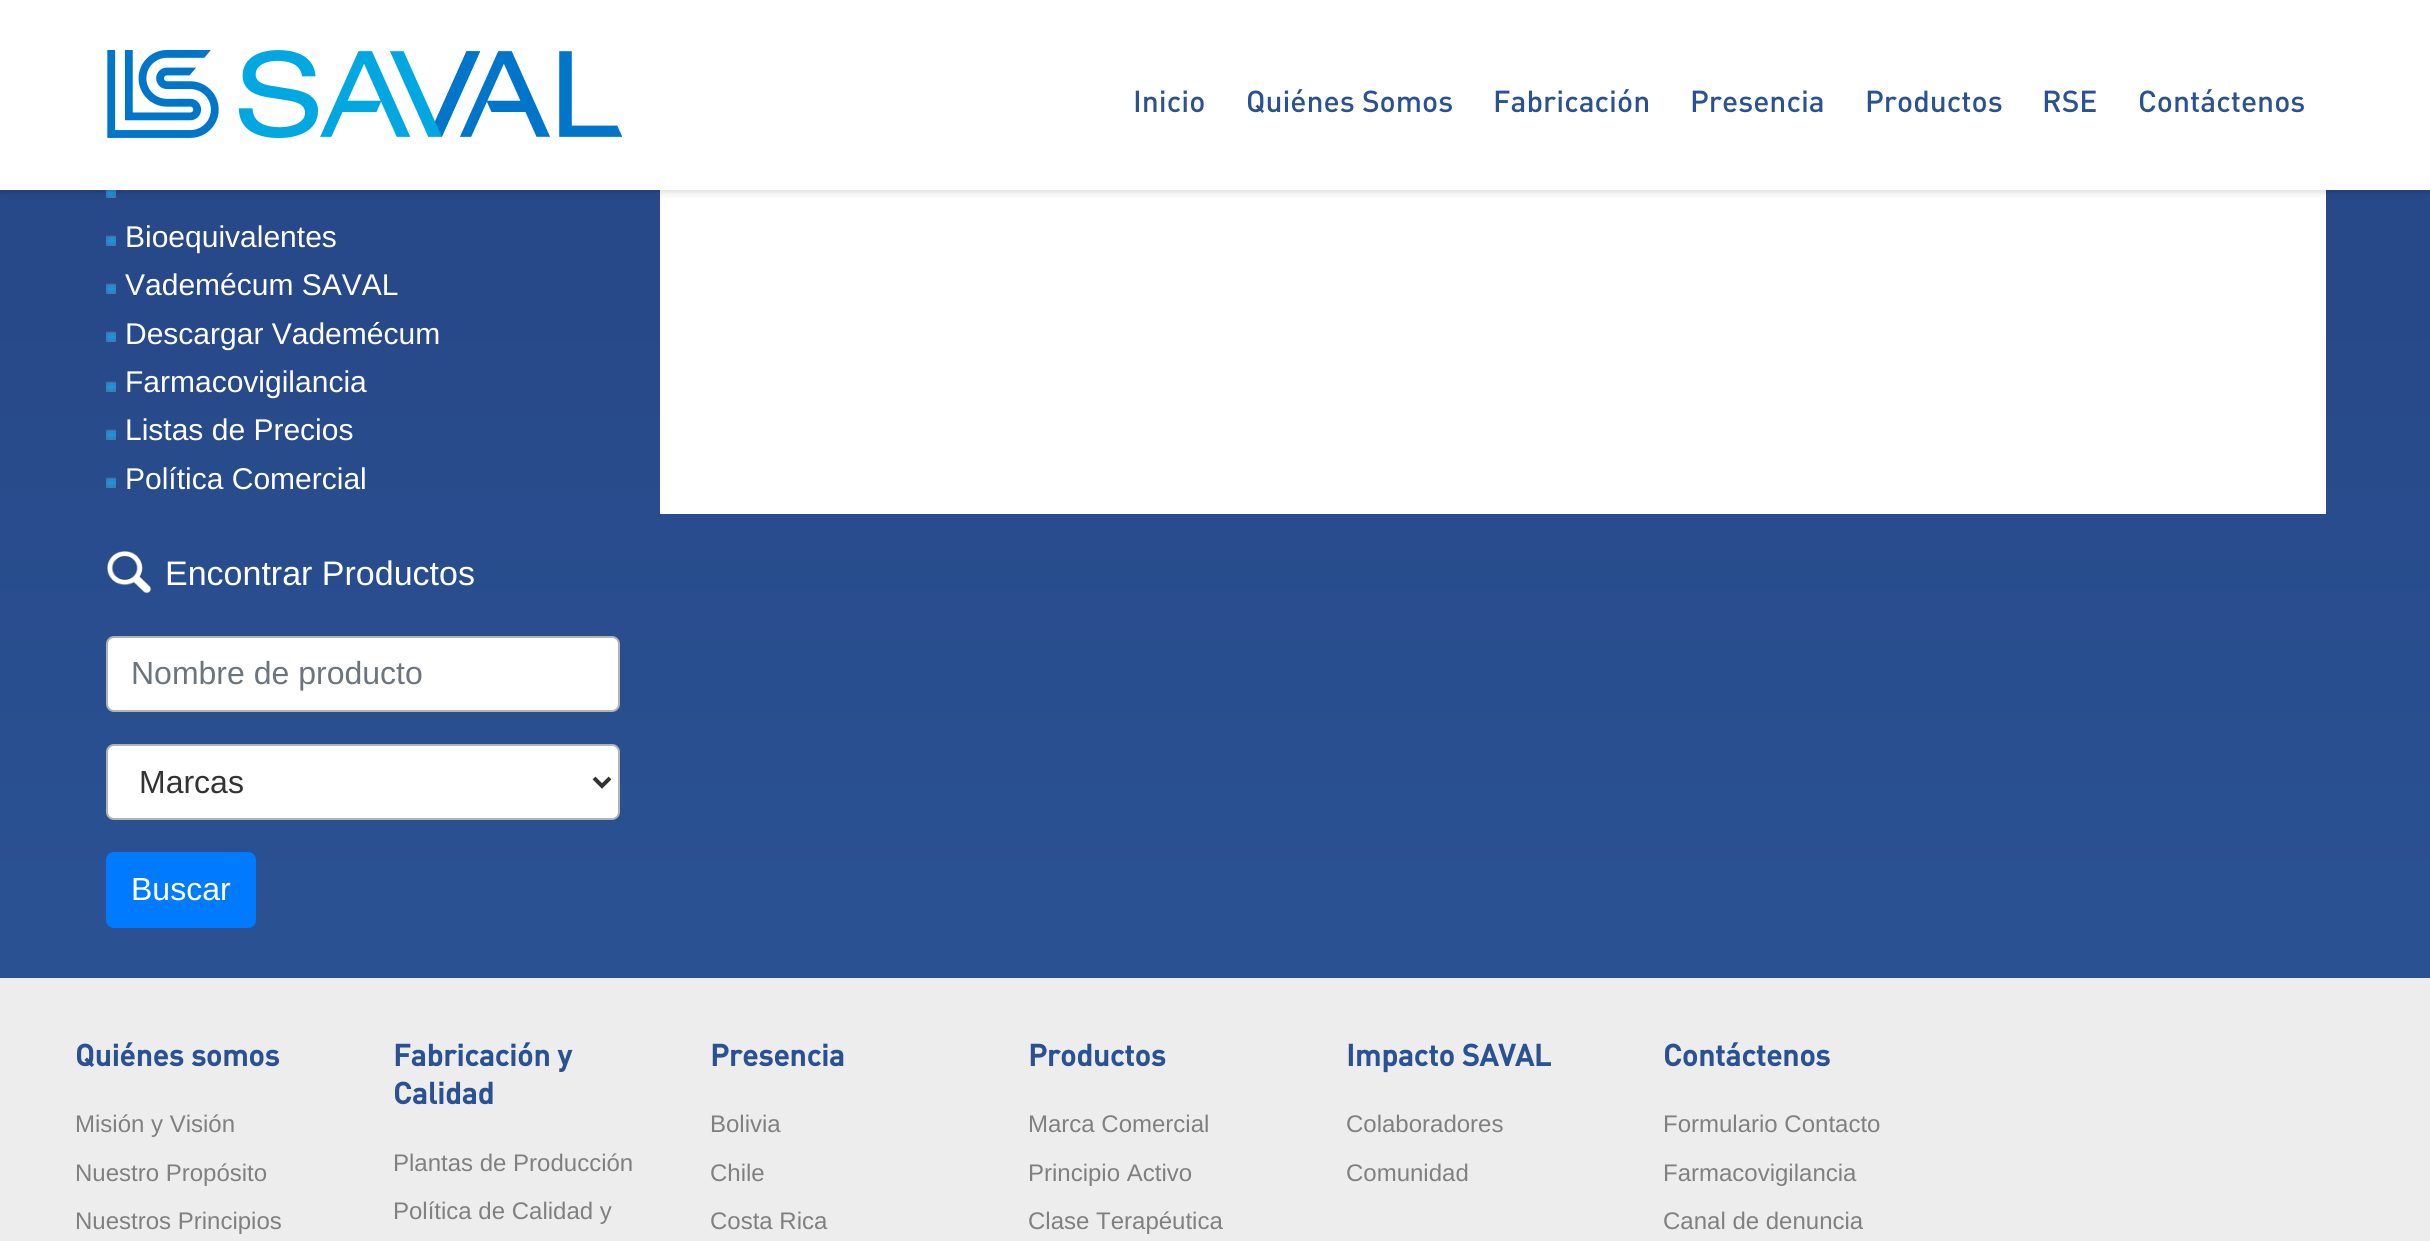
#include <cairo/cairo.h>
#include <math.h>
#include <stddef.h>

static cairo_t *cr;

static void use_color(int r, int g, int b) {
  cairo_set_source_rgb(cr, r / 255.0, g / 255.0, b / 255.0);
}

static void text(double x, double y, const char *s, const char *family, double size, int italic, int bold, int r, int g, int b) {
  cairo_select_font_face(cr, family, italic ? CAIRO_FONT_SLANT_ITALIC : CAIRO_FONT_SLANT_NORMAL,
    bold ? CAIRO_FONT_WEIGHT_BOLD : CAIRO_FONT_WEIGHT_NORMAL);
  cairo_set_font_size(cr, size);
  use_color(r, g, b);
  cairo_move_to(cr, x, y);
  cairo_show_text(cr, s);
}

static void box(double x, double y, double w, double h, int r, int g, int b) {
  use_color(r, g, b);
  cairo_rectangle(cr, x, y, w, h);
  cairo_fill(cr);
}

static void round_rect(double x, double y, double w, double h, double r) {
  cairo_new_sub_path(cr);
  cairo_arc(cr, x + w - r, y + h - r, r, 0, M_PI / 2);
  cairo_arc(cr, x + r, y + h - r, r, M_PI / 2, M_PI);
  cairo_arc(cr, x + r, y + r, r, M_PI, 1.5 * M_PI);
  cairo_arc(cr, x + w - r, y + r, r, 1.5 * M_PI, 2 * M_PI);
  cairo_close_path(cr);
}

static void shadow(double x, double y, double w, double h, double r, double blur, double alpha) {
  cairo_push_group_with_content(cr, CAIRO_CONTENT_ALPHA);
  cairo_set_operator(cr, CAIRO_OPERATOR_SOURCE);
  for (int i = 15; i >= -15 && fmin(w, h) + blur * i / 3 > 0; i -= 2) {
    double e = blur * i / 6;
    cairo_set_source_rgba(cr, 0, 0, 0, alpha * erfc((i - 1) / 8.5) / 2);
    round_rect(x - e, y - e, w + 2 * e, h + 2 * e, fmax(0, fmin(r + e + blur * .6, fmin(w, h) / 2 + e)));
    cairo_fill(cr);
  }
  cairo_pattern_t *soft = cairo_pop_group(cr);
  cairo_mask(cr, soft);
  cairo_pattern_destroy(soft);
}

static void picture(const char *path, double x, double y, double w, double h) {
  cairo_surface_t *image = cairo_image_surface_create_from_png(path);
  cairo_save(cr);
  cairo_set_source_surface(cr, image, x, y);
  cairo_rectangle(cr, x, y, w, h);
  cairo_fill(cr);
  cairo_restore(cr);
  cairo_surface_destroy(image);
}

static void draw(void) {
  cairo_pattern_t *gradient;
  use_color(237, 237, 237);
  cairo_paint(cr);
  gradient = cairo_pattern_create_linear(1215, -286, 1215, 978);
  cairo_pattern_add_color_stop_rgba(gradient, 0, 0.145, 0.255, 0.51, 1);
  cairo_pattern_add_color_stop_rgba(gradient, 1, 0.165, 0.322, 0.576, 1);
  cairo_set_source(cr, gradient);
  cairo_pattern_destroy(gradient);
  cairo_rectangle(cr, 0, 190, 2430, 788);
  cairo_fill(cr);
  picture("img_02.png", 106, 190, 10, 8);
  box(660, 190, 1666, 324, 255, 255, 255);
  use_color(0, 0, 0);
  shadow(0, 2, 2430, 190, 0, 4, 0.15);
  box(0, 0, 2430, 190, 255, 255, 255);
  picture("img_01.png", 107, 50, 515, 88);
  picture("img_03.png", 106, 235, 10, 11);
  picture("img_04.png", 106, 283, 10, 11);
  picture("img_04.png", 106, 331, 10, 11);
  picture("img_05.png", 106, 381, 10, 11);
  picture("img_06.png", 106, 429, 10, 11);
  picture("img_06.png", 106, 477, 10, 11);
  picture("img_07.png", 106, 550, 46, 44);
  round_rect(107, 637, 512, 74, 7);
  cairo_fill_preserve(cr);
  use_color(179, 179, 179);
  cairo_stroke(cr);
  use_color(255, 255, 255);
  round_rect(107, 745, 512, 74, 7);
  cairo_fill_preserve(cr);
  use_color(179, 179, 179);
  cairo_stroke(cr);
  cairo_new_path(cr);
  cairo_move_to(cr, 594, 778);
  cairo_line_to(cr, 602, 786);
  cairo_line_to(cr, 610, 778);
  use_color(51, 51, 51);
  cairo_set_line_width(cr, 4);
  cairo_stroke(cr);
  use_color(0, 123, 255);
  round_rect(107, 853, 148, 74, 7);
  cairo_fill_preserve(cr);
  cairo_set_line_width(cr, 2);
  cairo_stroke(cr);
  text(1133, 112, "Inicio", "DIN Medium", 30, 0, 0, 42, 82, 147);
  text(1246, 112, "Quiénes Somos", "DIN Medium", 30, 0, 0, 42, 82, 147);
  text(1493, 112, "Fabricación", "DIN Medium", 30, 0, 0, 42, 82, 147);
  text(1690, 112, "Presencia", "DIN Medium", 30, 0, 0, 42, 82, 147);
  text(1865, 112, "Productos", "DIN Medium", 30, 0, 0, 42, 82, 147);
  text(2042, 112, "RSE", "DIN Medium", 30, 0, 0, 42, 82, 147);
  text(2138, 112, "Contáctenos", "DIN Medium", 30, 0, 0, 42, 82, 147);
  text(125, 247, "Bioequivalentes", "Liberation Sans", 30, 0, 0, 255, 255, 255);
  text(125, 295, "Vademécum SAVAL", "Liberation Sans", 30, 0, 0, 255, 255, 255);
  text(125, 344, "Descargar Vademécum", "Liberation Sans", 30, 0, 0, 255, 255, 255);
  text(125, 392, "Farmacovigilancia", "Liberation Sans", 30, 0, 0, 255, 255, 255);
  text(125, 440, "Listas de Precios", "Liberation Sans", 30, 0, 0, 255, 255, 255);
  text(125, 489, "Política Comercial", "Liberation Sans", 30, 0, 0, 255, 255, 255);
  text(165, 585, "Encontrar Productos", "Liberation Sans", 34, 0, 0, 255, 255, 255);
  text(131, 684, "Nombre de producto", "Liberation Sans", 32, 0, 0, 108, 117, 125);
  text(139, 793, "Marcas", "Liberation Sans", 32, 0, 0, 51, 51, 51);
  text(131, 900, "Buscar", "Liberation Sans", 32, 0, 0, 255, 255, 255);
  text(75, 1066, "Quiénes somos", "DIN", 30, 0, 1, 42, 82, 147);
  text(75, 1132, "Misión y Visión", "Liberation Sans", 24, 0, 0, 128, 128, 128);
  text(75, 1181, "Nuestro Propósito", "Liberation Sans", 24, 0, 0, 128, 128, 128);
  text(75, 1229, "Nuestros Principios", "Liberation Sans", 24, 0, 0, 128, 128, 128);
  text(393, 1066, "Fabricación y", "DIN", 30, 0, 1, 42, 82, 147);
  text(393, 1104, "Calidad", "DIN", 30, 0, 1, 42, 82, 147);
  text(393, 1171, "Plantas de Producción", "Liberation Sans", 24, 0, 0, 128, 128, 128);
  text(393, 1219, "Política de Calidad y", "Liberation Sans", 24, 0, 0, 128, 128, 128);
  text(710, 1066, "Presencia", "DIN", 30, 0, 1, 42, 82, 147);
  text(710, 1132, "Bolivia", "Liberation Sans", 24, 0, 0, 128, 128, 128);
  text(710, 1181, "Chile", "Liberation Sans", 24, 0, 0, 128, 128, 128);
  text(710, 1229, "Costa Rica", "Liberation Sans", 24, 0, 0, 128, 128, 128);
  text(1028, 1066, "Productos", "DIN", 30, 0, 1, 42, 82, 147);
  text(1028, 1132, "Marca Comercial", "Liberation Sans", 24, 0, 0, 128, 128, 128);
  text(1028, 1181, "Principio Activo", "Liberation Sans", 24, 0, 0, 128, 128, 128);
  text(1028, 1229, "Clase Terapéutica", "Liberation Sans", 24, 0, 0, 128, 128, 128);
  text(1346, 1066, "Impacto SAVAL", "DIN", 30, 0, 1, 42, 82, 147);
  text(1346, 1132, "Colaboradores", "Liberation Sans", 24, 0, 0, 128, 128, 128);
  text(1346, 1181, "Comunidad", "Liberation Sans", 24, 0, 0, 128, 128, 128);
  text(1663, 1066, "Contáctenos", "DIN", 30, 0, 1, 42, 82, 147);
  text(1663, 1132, "Formulario Contacto", "Liberation Sans", 24, 0, 0, 128, 128, 128);
  text(1663, 1181, "Farmacovigilancia", "Liberation Sans", 24, 0, 0, 128, 128, 128);
  text(1663, 1229, "Canal de denuncia", "Liberation Sans", 24, 0, 0, 128, 128, 128);
}

int main(void) {
  cairo_surface_t *surface = cairo_image_surface_create(CAIRO_FORMAT_RGB24, 2430, 1241);
  cr = cairo_create(surface);
  cairo_font_options_t *options = cairo_font_options_create();
  cairo_font_options_set_hint_metrics(options, CAIRO_HINT_METRICS_OFF);
  cairo_font_options_set_hint_style(options, CAIRO_HINT_STYLE_NONE);
  cairo_set_font_options(cr, options);
  cairo_set_miter_limit(cr, 4);
  draw();
  cairo_surface_write_to_png(surface, "out.png");
  cairo_font_options_destroy(options);
  cairo_destroy(cr);
  cairo_surface_destroy(surface);
  return 0;
}
